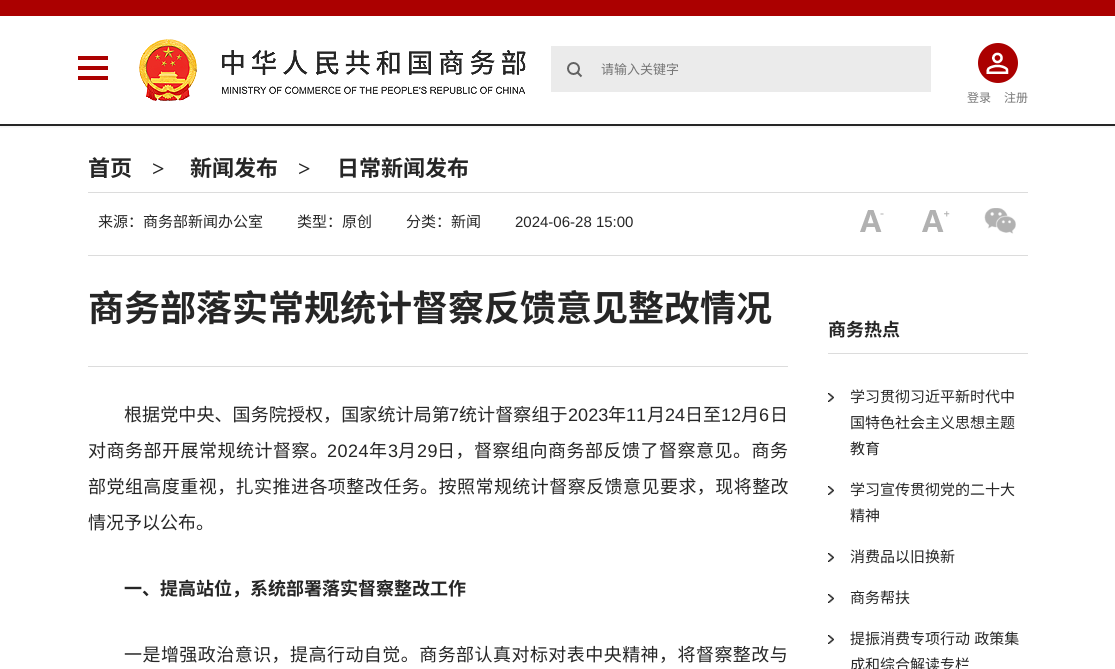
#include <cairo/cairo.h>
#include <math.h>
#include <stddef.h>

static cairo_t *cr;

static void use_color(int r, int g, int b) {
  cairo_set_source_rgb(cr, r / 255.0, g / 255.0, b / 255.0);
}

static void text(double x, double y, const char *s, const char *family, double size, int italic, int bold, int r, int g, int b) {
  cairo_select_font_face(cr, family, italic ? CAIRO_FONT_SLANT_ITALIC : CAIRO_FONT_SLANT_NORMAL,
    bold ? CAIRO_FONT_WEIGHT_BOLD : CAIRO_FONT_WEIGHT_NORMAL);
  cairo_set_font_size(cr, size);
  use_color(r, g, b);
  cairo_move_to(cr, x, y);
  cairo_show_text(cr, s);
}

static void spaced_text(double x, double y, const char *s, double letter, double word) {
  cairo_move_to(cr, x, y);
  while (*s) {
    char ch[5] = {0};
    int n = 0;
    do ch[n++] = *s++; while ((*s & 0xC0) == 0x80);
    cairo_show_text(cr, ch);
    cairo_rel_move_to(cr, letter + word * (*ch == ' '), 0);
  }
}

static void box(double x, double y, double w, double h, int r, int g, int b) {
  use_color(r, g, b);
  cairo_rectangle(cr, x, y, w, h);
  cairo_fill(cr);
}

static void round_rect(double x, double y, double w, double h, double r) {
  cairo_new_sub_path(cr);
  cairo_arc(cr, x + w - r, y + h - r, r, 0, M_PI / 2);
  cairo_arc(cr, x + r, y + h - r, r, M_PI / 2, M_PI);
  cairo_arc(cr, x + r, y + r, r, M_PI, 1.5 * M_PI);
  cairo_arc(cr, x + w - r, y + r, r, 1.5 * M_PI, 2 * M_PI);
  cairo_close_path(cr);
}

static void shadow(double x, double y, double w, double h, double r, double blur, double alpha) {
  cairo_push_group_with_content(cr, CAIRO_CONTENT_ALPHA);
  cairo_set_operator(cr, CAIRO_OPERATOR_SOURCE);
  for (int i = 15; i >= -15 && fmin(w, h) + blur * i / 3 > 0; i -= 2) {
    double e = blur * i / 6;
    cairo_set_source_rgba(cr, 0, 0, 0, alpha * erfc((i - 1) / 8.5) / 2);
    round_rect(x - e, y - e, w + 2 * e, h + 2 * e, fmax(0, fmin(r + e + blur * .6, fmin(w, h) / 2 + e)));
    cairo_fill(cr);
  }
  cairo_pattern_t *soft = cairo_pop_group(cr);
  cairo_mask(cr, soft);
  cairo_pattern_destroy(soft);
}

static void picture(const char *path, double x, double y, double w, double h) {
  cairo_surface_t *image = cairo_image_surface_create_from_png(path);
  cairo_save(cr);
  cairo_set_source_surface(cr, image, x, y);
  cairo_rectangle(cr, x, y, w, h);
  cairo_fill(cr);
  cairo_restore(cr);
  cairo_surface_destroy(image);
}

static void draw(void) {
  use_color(255, 255, 255);
  cairo_paint(cr);
  cairo_save(cr);
  cairo_rectangle(cr, 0, 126, 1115, 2);
  cairo_clip(cr);
  use_color(0, 0, 0);
  shadow(0, 0, 1115, 126, 0, 2.5, 0.1);
  cairo_restore(cr);
  box(0, 0, 1115, 16, 171, 0, 0);
  box(0, 124, 1115, 2, 38, 38, 38);
  box(78, 66, 30, 4, 171, 0, 0);
  box(78, 56, 30, 4, 171, 0, 0);
  box(78, 76, 30, 4, 171, 0, 0);
  picture("img_01.png", 139, 39, 387, 62);
  box(551, 46, 380, 46, 235, 235, 235);
  picture("img_02.png", 567, 62, 16, 16);
  use_color(171, 0, 0);
  cairo_arc(cr, 998, 63, 20, 0, 2 * M_PI);
  cairo_fill(cr);
  picture("img_03.png", 986, 52, 23, 22);
  box(88, 192, 940, 1, 220, 220, 220);
  box(88, 255, 940, 1, 220, 220, 220);
  picture("img_04.png", 860, 210, 24, 22);
  picture("img_05.png", 922, 210, 28, 22);
  picture("img_06.png", 984, 208, 32, 26);
  box(88, 366, 700, 1, 220, 220, 220);
  box(828, 353, 200, 1, 220, 220, 220);
  picture("img_07.png", 828, 393, 6, 9);
  picture("img_07.png", 828, 486, 6, 9);
  picture("img_07.png", 828, 553, 6, 9);
  picture("img_07.png", 828, 594, 6, 9);
  picture("img_07.png", 828, 635, 6, 9);
  text(601, 74, "请输入关键字", "Noto Sans CJK SC", 13, 0, 0, 117, 117, 117);
  text(967, 102, "登录", "Noto Sans CJK SC", 12, 0, 0, 117, 117, 117);
  text(1004, 102, "注册", "Noto Sans CJK SC", 12, 0, 0, 117, 117, 117);
  text(88, 176, "首页", "Noto Sans CJK SC", 22, 0, 1, 38, 38, 38);
  text(152, 176, ">", "Liberation Serif", 22, 0, 1, 38, 38, 38);
  text(190, 176, "新闻发布", "Noto Sans CJK SC", 22, 0, 1, 38, 38, 38);
  text(298, 176, ">", "Liberation Serif", 22, 0, 1, 38, 38, 38);
  text(337, 176, "日常新闻发布", "Noto Sans CJK SC", 22, 0, 1, 38, 38, 38);
  text(98, 227, "来源：商务部新闻办公室", "Noto Sans CJK SC", 15, 0, 0, 38, 38, 38);
  text(297, 227, "类型：原创", "Noto Sans CJK SC", 15, 0, 0, 38, 38, 38);
  text(406, 227, "分类：新闻", "Noto Sans CJK SC", 15, 0, 0, 38, 38, 38);
  text(515, 227, "2024-06-28 15:00", "Liberation Sans", 15, 0, 0, 38, 38, 38);
  text(88, 321, "商务部落实常规统计督察反馈意见整改情况", "Noto Sans CJK SC", 36, 0, 1, 38, 38, 38);
  cairo_select_font_face(cr, "Noto Sans CJK SC", CAIRO_FONT_SLANT_NORMAL, CAIRO_FONT_WEIGHT_NORMAL);
  cairo_set_font_size(cr, 18);
  spaced_text(124, 421, "根据党中央、国务院授权，国家统计局第", 0.1, 0);
  cairo_select_font_face(cr, "Liberation Sans", CAIRO_FONT_SLANT_NORMAL, CAIRO_FONT_WEIGHT_NORMAL);
  spaced_text(449, 421, "7", 0.1, 0);
  cairo_select_font_face(cr, "Noto Sans CJK SC", CAIRO_FONT_SLANT_NORMAL, CAIRO_FONT_WEIGHT_NORMAL);
  spaced_text(459, 421, "统计督察组于", 0.1, 0);
  cairo_select_font_face(cr, "Liberation Sans", CAIRO_FONT_SLANT_NORMAL, CAIRO_FONT_WEIGHT_NORMAL);
  spaced_text(568, 421, "2023", 0.1, 0);
  cairo_select_font_face(cr, "Noto Sans CJK SC", CAIRO_FONT_SLANT_NORMAL, CAIRO_FONT_WEIGHT_NORMAL);
  spaced_text(608, 421, "年", 0.1, 0);
  cairo_select_font_face(cr, "Liberation Sans", CAIRO_FONT_SLANT_NORMAL, CAIRO_FONT_WEIGHT_NORMAL);
  spaced_text(626, 421, "11", 0.1, 0);
  cairo_select_font_face(cr, "Noto Sans CJK SC", CAIRO_FONT_SLANT_NORMAL, CAIRO_FONT_WEIGHT_NORMAL);
  spaced_text(647, 421, "月", 0.1, 0);
  cairo_select_font_face(cr, "Liberation Sans", CAIRO_FONT_SLANT_NORMAL, CAIRO_FONT_WEIGHT_NORMAL);
  spaced_text(665, 421, "24", 0.1, 0);
  cairo_select_font_face(cr, "Noto Sans CJK SC", CAIRO_FONT_SLANT_NORMAL, CAIRO_FONT_WEIGHT_NORMAL);
  spaced_text(685, 421, "日至", 0.1, 0);
  cairo_select_font_face(cr, "Liberation Sans", CAIRO_FONT_SLANT_NORMAL, CAIRO_FONT_WEIGHT_NORMAL);
  spaced_text(721, 421, "12", 0.1, 0);
  cairo_select_font_face(cr, "Noto Sans CJK SC", CAIRO_FONT_SLANT_NORMAL, CAIRO_FONT_WEIGHT_NORMAL);
  spaced_text(741, 421, "月", 0.1, 0);
  cairo_select_font_face(cr, "Liberation Sans", CAIRO_FONT_SLANT_NORMAL, CAIRO_FONT_WEIGHT_NORMAL);
  spaced_text(759, 421, "6", 0.1, 0);
  cairo_select_font_face(cr, "Noto Sans CJK SC", CAIRO_FONT_SLANT_NORMAL, CAIRO_FONT_WEIGHT_NORMAL);
  spaced_text(770, 421, "日", 0.1, 0);
  spaced_text(88, 457, "对商务部开展常规统计督察。", 0.5, 0);
  cairo_select_font_face(cr, "Liberation Sans", CAIRO_FONT_SLANT_NORMAL, CAIRO_FONT_WEIGHT_NORMAL);
  spaced_text(327, 457, "2024", 0.5, 0);
  cairo_select_font_face(cr, "Noto Sans CJK SC", CAIRO_FONT_SLANT_NORMAL, CAIRO_FONT_WEIGHT_NORMAL);
  spaced_text(369, 457, "年", 0.5, 0);
  cairo_select_font_face(cr, "Liberation Sans", CAIRO_FONT_SLANT_NORMAL, CAIRO_FONT_WEIGHT_NORMAL);
  spaced_text(388, 457, "3", 0.5, 0);
  cairo_select_font_face(cr, "Noto Sans CJK SC", CAIRO_FONT_SLANT_NORMAL, CAIRO_FONT_WEIGHT_NORMAL);
  spaced_text(398, 457, "月", 0.5, 0);
  cairo_select_font_face(cr, "Liberation Sans", CAIRO_FONT_SLANT_NORMAL, CAIRO_FONT_WEIGHT_NORMAL);
  spaced_text(417, 457, "29", 0.5, 0);
  cairo_select_font_face(cr, "Noto Sans CJK SC", CAIRO_FONT_SLANT_NORMAL, CAIRO_FONT_WEIGHT_NORMAL);
  spaced_text(437, 457, "日，督察组向商务部反馈了督察意见。商务", 0.5, 0);
  spaced_text(88, 493, "部党组高度重视，扎实推进各项整改任务。按照常规统计督察反馈意见要求，现将整改", 0.45, 0);
  text(88, 529, "情况予以公布。", "Noto Sans CJK SC", 18, 0, 0, 38, 38, 38);
  text(124, 595, "一、提高站位，系统部署落实督察整改工作", "Noto Sans CJK SC", 18, 0, 1, 38, 38, 38);
  cairo_select_font_face(cr, "Noto Sans CJK SC", CAIRO_FONT_SLANT_NORMAL, CAIRO_FONT_WEIGHT_NORMAL);
  spaced_text(124, 661, "一是增强政治意识，提高行动自觉。商务部认真对标对表中央精神，将督察整改与", 0.45, 0);
  text(828, 336, "商务热点", "Noto Sans CJK SC", 18, 0, 1, 38, 38, 38);
  text(850, 402, "学习贯彻习近平新时代中", "Noto Sans CJK SC", 15, 0, 0, 38, 38, 38);
  text(850, 428, "国特色社会主义思想主题", "Noto Sans CJK SC", 15, 0, 0, 38, 38, 38);
  text(850, 454, "教育", "Noto Sans CJK SC", 15, 0, 0, 38, 38, 38);
  text(850, 495, "学习宣传贯彻党的二十大", "Noto Sans CJK SC", 15, 0, 0, 38, 38, 38);
  text(850, 521, "精神", "Noto Sans CJK SC", 15, 0, 0, 38, 38, 38);
  text(850, 562, "消费品以旧换新", "Noto Sans CJK SC", 15, 0, 0, 38, 38, 38);
  text(850, 603, "商务帮扶", "Noto Sans CJK SC", 15, 0, 0, 38, 38, 38);
  spaced_text(850, 644, "提振消费专项行动 政策集", 0, 1);
  text(850, 670, "成和综合解读专栏", "Noto Sans CJK SC", 15, 0, 0, 38, 38, 38);
}

int main(void) {
  cairo_surface_t *surface = cairo_image_surface_create(CAIRO_FORMAT_RGB24, 1115, 669);
  cr = cairo_create(surface);
  cairo_font_options_t *options = cairo_font_options_create();
  cairo_font_options_set_hint_metrics(options, CAIRO_HINT_METRICS_OFF);
  cairo_font_options_set_hint_style(options, CAIRO_HINT_STYLE_NONE);
  cairo_set_font_options(cr, options);
  cairo_set_miter_limit(cr, 4);
  draw();
  cairo_surface_write_to_png(surface, "out.png");
  cairo_font_options_destroy(options);
  cairo_destroy(cr);
  cairo_surface_destroy(surface);
  return 0;
}
